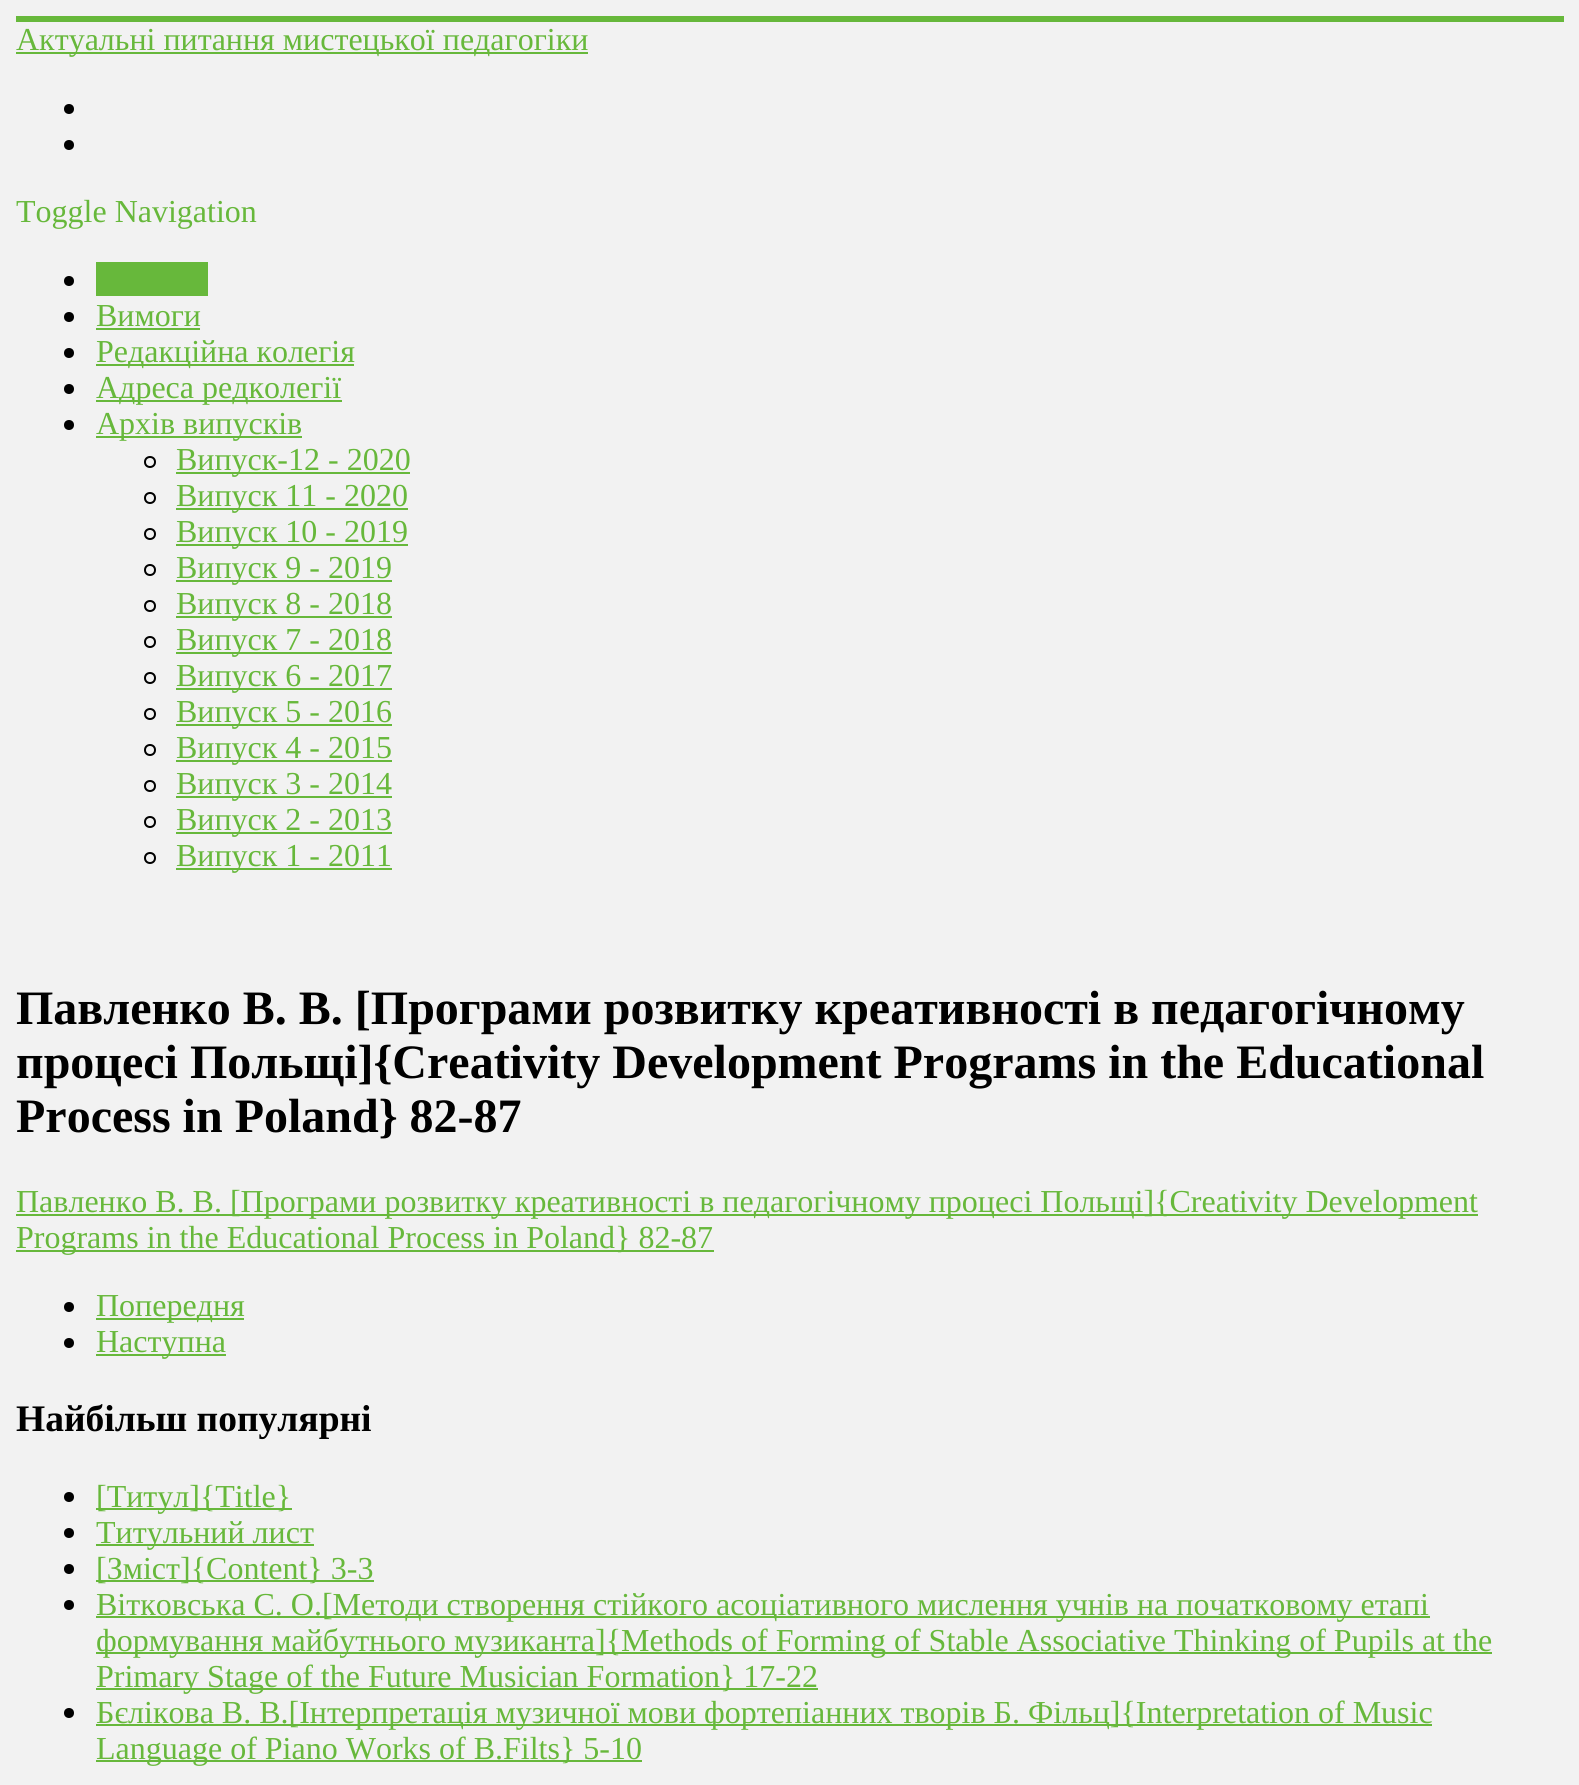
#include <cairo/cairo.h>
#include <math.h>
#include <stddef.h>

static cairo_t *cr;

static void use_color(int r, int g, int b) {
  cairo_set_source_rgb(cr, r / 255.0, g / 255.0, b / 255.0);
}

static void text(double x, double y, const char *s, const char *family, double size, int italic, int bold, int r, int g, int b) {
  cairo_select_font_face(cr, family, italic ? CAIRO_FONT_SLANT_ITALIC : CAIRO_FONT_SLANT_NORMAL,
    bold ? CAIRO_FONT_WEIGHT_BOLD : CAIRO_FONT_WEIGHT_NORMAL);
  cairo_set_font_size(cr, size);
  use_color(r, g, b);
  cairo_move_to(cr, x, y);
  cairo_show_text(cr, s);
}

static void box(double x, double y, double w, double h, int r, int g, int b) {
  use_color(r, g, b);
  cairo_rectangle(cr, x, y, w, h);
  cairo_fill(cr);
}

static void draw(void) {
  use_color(242, 242, 242);
  cairo_paint(cr);
  box(16, 16, 1548, 6, 103, 184, 59);
  box(16, 52, 572, 2, 103, 184, 59);
  use_color(0, 0, 0);
  cairo_arc(cr, 69, 109, 5, 0, 2 * M_PI);
  cairo_fill(cr);
  cairo_arc(cr, 69, 145, 5, 0, 2 * M_PI);
  cairo_fill(cr);
  cairo_arc(cr, 69, 281, 5, 0, 2 * M_PI);
  cairo_fill(cr);
  box(96, 262, 112, 34, 103, 184, 59);
  use_color(0, 0, 0);
  cairo_arc(cr, 69, 317, 5, 0, 2 * M_PI);
  cairo_fill(cr);
  box(96, 328, 104, 2, 103, 184, 59);
  use_color(0, 0, 0);
  cairo_arc(cr, 69, 353, 5, 0, 2 * M_PI);
  cairo_fill(cr);
  box(96, 364, 258, 2, 103, 184, 59);
  use_color(0, 0, 0);
  cairo_arc(cr, 69, 389, 5, 0, 2 * M_PI);
  cairo_fill(cr);
  box(96, 400, 246, 2, 103, 184, 59);
  use_color(0, 0, 0);
  cairo_arc(cr, 69, 425, 5, 0, 2 * M_PI);
  cairo_fill(cr);
  box(96, 436, 206, 2, 103, 184, 59);
  cairo_arc(cr, 150, 462, 5, 0, 2 * M_PI);
  use_color(0, 0, 0);
  cairo_stroke(cr);
  box(176, 472, 234, 2, 103, 184, 59);
  cairo_arc(cr, 150, 498, 5, 0, 2 * M_PI);
  use_color(0, 0, 0);
  cairo_stroke(cr);
  box(176, 508, 232, 2, 103, 184, 59);
  cairo_arc(cr, 150, 534, 5, 0, 2 * M_PI);
  use_color(0, 0, 0);
  cairo_stroke(cr);
  box(176, 544, 232, 2, 103, 184, 59);
  cairo_arc(cr, 150, 570, 5, 0, 2 * M_PI);
  use_color(0, 0, 0);
  cairo_stroke(cr);
  box(176, 580, 216, 2, 103, 184, 59);
  cairo_arc(cr, 150, 606, 5, 0, 2 * M_PI);
  use_color(0, 0, 0);
  cairo_stroke(cr);
  box(176, 616, 216, 2, 103, 184, 59);
  cairo_arc(cr, 150, 642, 5, 0, 2 * M_PI);
  use_color(0, 0, 0);
  cairo_stroke(cr);
  box(176, 652, 216, 2, 103, 184, 59);
  cairo_arc(cr, 150, 678, 5, 0, 2 * M_PI);
  use_color(0, 0, 0);
  cairo_stroke(cr);
  box(176, 688, 216, 2, 103, 184, 59);
  cairo_arc(cr, 150, 714, 5, 0, 2 * M_PI);
  use_color(0, 0, 0);
  cairo_stroke(cr);
  box(176, 724, 216, 2, 103, 184, 59);
  cairo_arc(cr, 150, 750, 5, 0, 2 * M_PI);
  use_color(0, 0, 0);
  cairo_stroke(cr);
  box(176, 760, 216, 2, 103, 184, 59);
  cairo_arc(cr, 150, 786, 5, 0, 2 * M_PI);
  use_color(0, 0, 0);
  cairo_stroke(cr);
  box(176, 796, 216, 2, 103, 184, 59);
  cairo_arc(cr, 150, 822, 5, 0, 2 * M_PI);
  use_color(0, 0, 0);
  cairo_stroke(cr);
  box(176, 832, 216, 2, 103, 184, 59);
  cairo_arc(cr, 150, 858, 5, 0, 2 * M_PI);
  use_color(0, 0, 0);
  cairo_stroke(cr);
  box(176, 868, 216, 2, 103, 184, 59);
  box(16, 1214, 1462, 2, 103, 184, 59);
  box(16, 1250, 698, 2, 103, 184, 59);
  use_color(0, 0, 0);
  cairo_arc(cr, 69, 1307, 5, 0, 2 * M_PI);
  cairo_fill(cr);
  box(96, 1318, 148, 2, 103, 184, 59);
  use_color(0, 0, 0);
  cairo_arc(cr, 69, 1343, 5, 0, 2 * M_PI);
  cairo_fill(cr);
  box(96, 1354, 130, 2, 103, 184, 59);
  use_color(0, 0, 0);
  cairo_arc(cr, 69, 1497, 5, 0, 2 * M_PI);
  cairo_fill(cr);
  box(96, 1508, 196, 2, 103, 184, 59);
  use_color(0, 0, 0);
  cairo_arc(cr, 69, 1533, 5, 0, 2 * M_PI);
  cairo_fill(cr);
  box(96, 1544, 218, 2, 103, 184, 59);
  use_color(0, 0, 0);
  cairo_arc(cr, 69, 1569, 5, 0, 2 * M_PI);
  cairo_fill(cr);
  box(96, 1580, 278, 2, 103, 184, 59);
  use_color(0, 0, 0);
  cairo_arc(cr, 69, 1605, 5, 0, 2 * M_PI);
  cairo_fill(cr);
  box(96, 1616, 1334, 2, 103, 184, 59);
  box(96, 1652, 1396, 2, 103, 184, 59);
  box(96, 1688, 722, 2, 103, 184, 59);
  use_color(0, 0, 0);
  cairo_arc(cr, 69, 1713, 5, 0, 2 * M_PI);
  cairo_fill(cr);
  box(96, 1724, 1336, 2, 103, 184, 59);
  box(96, 1760, 546, 2, 103, 184, 59);
  text(16, 50, "Актуальні питання мистецької педагогіки", "Liberation Serif", 32, 0, 0, 103, 184, 59);
  text(16, 222, "Toggle Navigation", "Liberation Serif", 32, 0, 0, 103, 184, 59);
  text(96, 326, "Вимоги", "Liberation Serif", 32, 0, 0, 103, 184, 59);
  text(96, 362, "Редакційна колегія", "Liberation Serif", 32, 0, 0, 103, 184, 59);
  text(96, 398, "Адреса редколегії", "Liberation Serif", 32, 0, 0, 103, 184, 59);
  text(96, 434, "Архів випусків", "Liberation Serif", 32, 0, 0, 103, 184, 59);
  text(176, 470, "Випуск-12 - 2020", "Liberation Serif", 32, 0, 0, 103, 184, 59);
  text(176, 506, "Випуск 11 - 2020", "Liberation Serif", 32, 0, 0, 103, 184, 59);
  text(176, 542, "Випуск 10 - 2019", "Liberation Serif", 32, 0, 0, 103, 184, 59);
  text(176, 578, "Випуск 9 - 2019", "Liberation Serif", 32, 0, 0, 103, 184, 59);
  text(176, 614, "Випуск 8 - 2018", "Liberation Serif", 32, 0, 0, 103, 184, 59);
  text(176, 650, "Випуск 7 - 2018", "Liberation Serif", 32, 0, 0, 103, 184, 59);
  text(176, 686, "Випуск 6 - 2017", "Liberation Serif", 32, 0, 0, 103, 184, 59);
  text(176, 722, "Випуск 5 - 2016", "Liberation Serif", 32, 0, 0, 103, 184, 59);
  text(176, 758, "Випуск 4 - 2015", "Liberation Serif", 32, 0, 0, 103, 184, 59);
  text(176, 794, "Випуск 3 - 2014", "Liberation Serif", 32, 0, 0, 103, 184, 59);
  text(176, 830, "Випуск 2 - 2013", "Liberation Serif", 32, 0, 0, 103, 184, 59);
  text(176, 866, "Випуск 1 - 2011", "Liberation Serif", 32, 0, 0, 103, 184, 59);
  text(16, 1024, "Павленко В. В. [Програми розвитку креативності в педагогічному", "Liberation Serif", 48, 0, 1, 0, 0, 0);
  text(16, 1078, "процесі Польщі]{Creativity Development Programs in the Educational", "Liberation Serif", 48, 0, 1, 0, 0, 0);
  text(16, 1132, "Process in Poland} 82-87", "Liberation Serif", 48, 0, 1, 0, 0, 0);
  text(16, 1212, "Павленко В. В. [Програми розвитку креативності в педагогічному процесі Польщі]{Creativity Development", "Liberation Serif", 32, 0, 0, 103, 184, 59);
  text(16, 1248, "Programs in the Educational Process in Poland} 82-87", "Liberation Serif", 32, 0, 0, 103, 184, 59);
  text(96, 1316, "Попередня", "Liberation Serif", 32, 0, 0, 103, 184, 59);
  text(96, 1352, "Наступна", "Liberation Serif", 32, 0, 0, 103, 184, 59);
  text(16, 1431, "Найбільш популярні", "Liberation Serif", 37.5, 0, 1, 0, 0, 0);
  text(96, 1507, "[Титул]{Title}", "Liberation Serif", 32, 0, 0, 103, 184, 59);
  text(96, 1543, "Титульний лист", "Liberation Serif", 32, 0, 0, 103, 184, 59);
  text(96, 1579, "[Зміст]{Content} 3-3", "Liberation Serif", 32, 0, 0, 103, 184, 59);
  text(96, 1615, "Вітковська С. О.[Методи створення стійкого асоціативного мислення учнів на початковому етапі", "Liberation Serif", 32, 0, 0, 103, 184, 59);
  text(96, 1651, "формування майбутнього музиканта]{Methods of Forming of Stable Associative Thinking of Pupils at the", "Liberation Serif", 32, 0, 0, 103, 184, 59);
  text(96, 1687, "Primary Stage of the Future Musician Formation} 17-22", "Liberation Serif", 32, 0, 0, 103, 184, 59);
  text(96, 1723, "Бєлікова В. В.[Інтерпретація музичної мови фортепіанних творів Б. Фільц]{Interpretation of Music", "Liberation Serif", 32, 0, 0, 103, 184, 59);
  text(96, 1759, "Language of Piano Works of B.Filts} 5-10", "Liberation Serif", 32, 0, 0, 103, 184, 59);
}

int main(void) {
  cairo_surface_t *surface = cairo_image_surface_create(CAIRO_FORMAT_RGB24, 1579, 1785);
  cr = cairo_create(surface);
  cairo_font_options_t *options = cairo_font_options_create();
  cairo_font_options_set_hint_metrics(options, CAIRO_HINT_METRICS_OFF);
  cairo_font_options_set_hint_style(options, CAIRO_HINT_STYLE_NONE);
  cairo_set_font_options(cr, options);
  cairo_set_miter_limit(cr, 4);
  draw();
  cairo_surface_write_to_png(surface, "out.png");
  cairo_font_options_destroy(options);
  cairo_destroy(cr);
  cairo_surface_destroy(surface);
  return 0;
}
